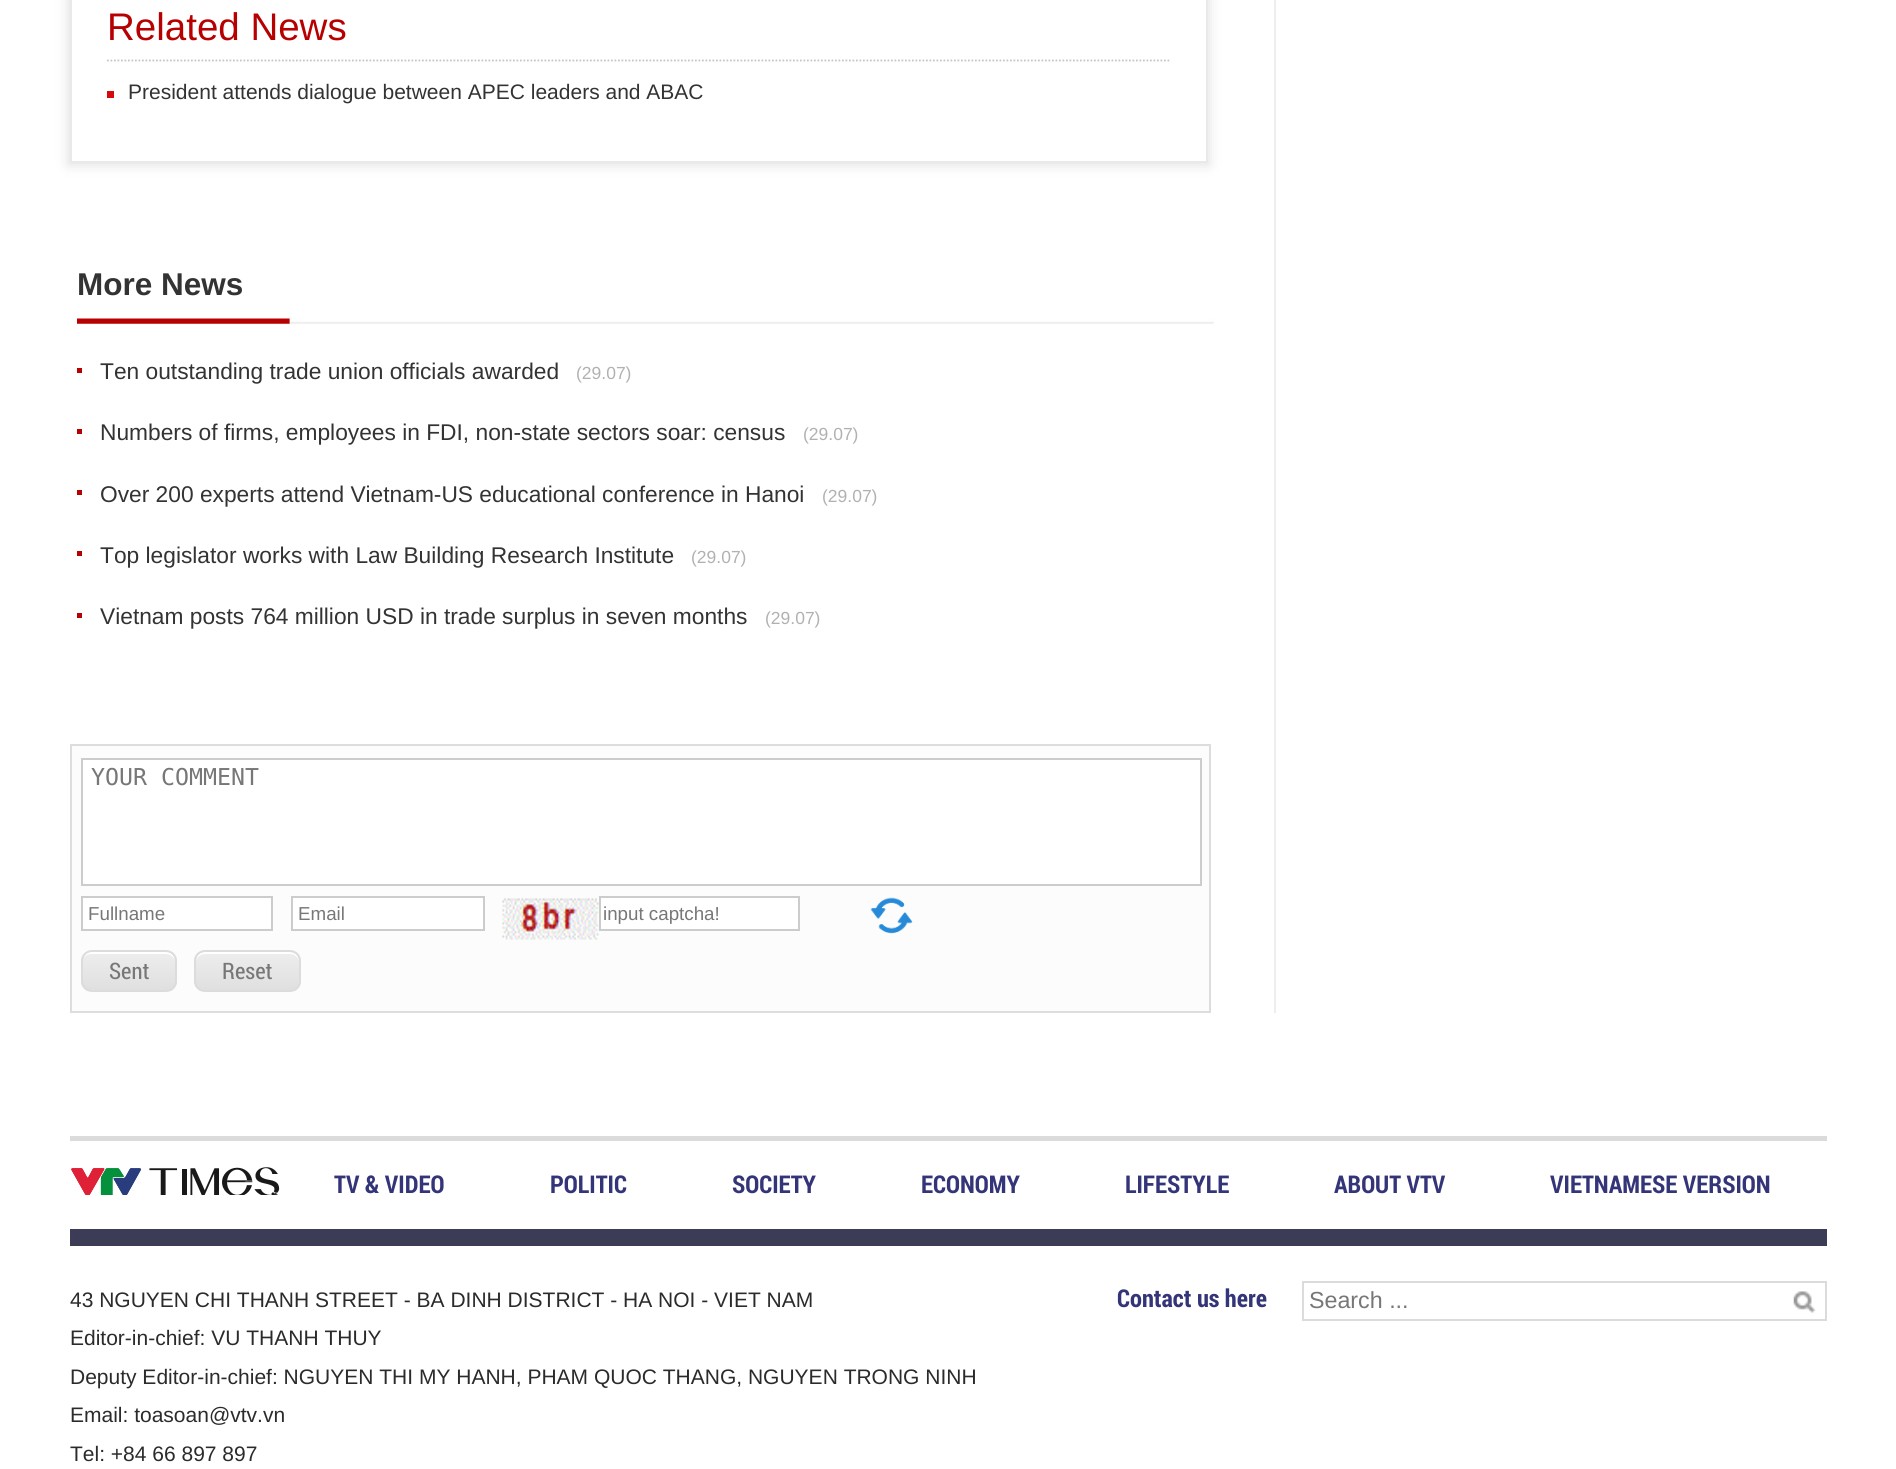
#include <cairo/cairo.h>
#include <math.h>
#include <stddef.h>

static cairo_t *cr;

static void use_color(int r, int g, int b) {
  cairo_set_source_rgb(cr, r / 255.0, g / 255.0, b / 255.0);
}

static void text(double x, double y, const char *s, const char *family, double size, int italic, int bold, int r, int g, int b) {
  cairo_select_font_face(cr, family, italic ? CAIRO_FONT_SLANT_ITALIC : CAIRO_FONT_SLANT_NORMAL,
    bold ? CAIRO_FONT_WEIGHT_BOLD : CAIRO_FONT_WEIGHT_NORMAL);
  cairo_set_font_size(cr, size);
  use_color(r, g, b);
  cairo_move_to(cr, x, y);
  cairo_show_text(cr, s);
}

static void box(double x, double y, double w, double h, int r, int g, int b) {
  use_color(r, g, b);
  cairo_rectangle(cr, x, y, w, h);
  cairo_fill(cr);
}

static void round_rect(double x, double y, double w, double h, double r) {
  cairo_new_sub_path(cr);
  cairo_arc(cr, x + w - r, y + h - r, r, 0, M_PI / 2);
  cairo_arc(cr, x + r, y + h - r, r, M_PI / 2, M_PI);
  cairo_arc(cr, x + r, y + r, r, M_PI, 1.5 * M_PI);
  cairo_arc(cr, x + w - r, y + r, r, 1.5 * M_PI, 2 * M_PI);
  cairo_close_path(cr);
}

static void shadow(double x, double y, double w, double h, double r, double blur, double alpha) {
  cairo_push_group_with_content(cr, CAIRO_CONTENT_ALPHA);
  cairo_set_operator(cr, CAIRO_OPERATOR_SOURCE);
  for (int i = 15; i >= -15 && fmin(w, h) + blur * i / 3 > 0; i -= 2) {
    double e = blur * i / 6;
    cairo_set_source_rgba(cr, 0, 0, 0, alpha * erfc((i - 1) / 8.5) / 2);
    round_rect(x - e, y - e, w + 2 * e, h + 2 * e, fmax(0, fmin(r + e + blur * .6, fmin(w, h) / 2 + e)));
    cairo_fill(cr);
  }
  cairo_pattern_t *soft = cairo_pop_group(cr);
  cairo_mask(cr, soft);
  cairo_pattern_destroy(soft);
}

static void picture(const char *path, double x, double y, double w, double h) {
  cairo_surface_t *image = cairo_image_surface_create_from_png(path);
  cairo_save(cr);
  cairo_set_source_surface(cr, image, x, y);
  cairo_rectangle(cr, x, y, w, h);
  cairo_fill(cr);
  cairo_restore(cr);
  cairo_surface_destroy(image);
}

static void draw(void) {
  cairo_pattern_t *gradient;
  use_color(255, 255, 255);
  cairo_paint(cr);
  box(1274, 0, 2, 1013, 238, 238, 238);
  cairo_save(cr);
  cairo_set_fill_rule(cr, CAIRO_FILL_RULE_EVEN_ODD);
  cairo_new_path(cr);
  cairo_move_to(cr, 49, 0);
  cairo_line_to(cr, 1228, 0);
  cairo_line_to(cr, 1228, 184);
  cairo_line_to(cr, 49, 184);
  cairo_close_path(cr);
  cairo_move_to(cr, 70, -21);
  cairo_line_to(cr, 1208, -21);
  cairo_line_to(cr, 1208, 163);
  cairo_line_to(cr, 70, 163);
  cairo_close_path(cr);
  cairo_clip(cr);
  use_color(218, 218, 218);
  shadow(68, -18, 1141, 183, 0, 6, 0.8);
  cairo_restore(cr);
  cairo_rectangle(cr, 71, -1, 1136, 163);
  use_color(233, 233, 233);
  cairo_stroke(cr);
  cairo_new_path(cr);
  cairo_move_to(cr, 107, 60.5);
  cairo_line_to(cr, 1171, 60.5);
  use_color(197, 197, 197);
  cairo_set_line_width(cr, 1.8);
  cairo_set_dash(cr, (double[]){1.75, 1.75}, 2, 0);
  cairo_stroke(cr);
  box(107, 91, 7, 7, 214, 10, 10);
  picture("img_01.png", 77, 318, 1137, 6);
  box(77, 368, 5, 5, 182, 0, 2);
  box(77, 429, 5, 5, 182, 0, 2);
  box(77, 490, 5, 5, 182, 0, 2);
  box(77, 551, 5, 5, 182, 0, 2);
  box(77, 613, 5, 5, 182, 0, 2);
  use_color(252, 252, 252);
  cairo_rectangle(cr, 71, 745, 1139, 267);
  cairo_fill_preserve(cr);
  use_color(221, 221, 221);
  cairo_set_line_width(cr, 2);
  cairo_set_dash(cr, NULL, 0, 0);
  cairo_stroke(cr);
  use_color(255, 255, 255);
  cairo_rectangle(cr, 82, 759, 1119, 126);
  cairo_fill_preserve(cr);
  use_color(204, 204, 204);
  cairo_stroke(cr);
  use_color(255, 255, 255);
  cairo_rectangle(cr, 82, 897, 190, 33);
  cairo_fill_preserve(cr);
  use_color(204, 204, 204);
  cairo_stroke(cr);
  use_color(255, 255, 255);
  cairo_rectangle(cr, 292, 897, 192, 33);
  cairo_fill_preserve(cr);
  use_color(204, 204, 204);
  cairo_stroke(cr);
  picture("img_02.png", 502, 898, 97, 42);
  use_color(255, 255, 255);
  cairo_rectangle(cr, 600, 897, 199, 33);
  cairo_fill_preserve(cr);
  use_color(204, 204, 204);
  cairo_stroke(cr);
  picture("img_03.png", 870, 897, 43, 37);
  cairo_save(cr);
  round_rect(81, 950, 96, 42, 11);
  cairo_clip(cr);
  gradient = cairo_pattern_create_linear(129, 952, 129, 991);
  cairo_pattern_add_color_stop_rgba(gradient, 0.05, 0.929, 0.929, 0.929, 1);
  cairo_pattern_add_color_stop_rgba(gradient, 1, 0.875, 0.875, 0.875, 1);
  cairo_set_source(cr, gradient);
  cairo_pattern_destroy(gradient);
  cairo_rectangle(cr, 81, 952, 96, 39);
  cairo_fill(cr);
  cairo_restore(cr);
  use_color(255, 255, 255);
  cairo_new_path(cr);
  cairo_move_to(cr, 91, 954);
  cairo_line_to(cr, 166, 954);
  cairo_curve_to(cr, 171, 954, 175, 958, 175, 962);
  cairo_curve_to(cr, 175, 949, 162, 952, 154, 952);
  cairo_line_to(cr, 104, 952);
  cairo_curve_to(cr, 95, 952, 82, 949, 82, 962);
  cairo_curve_to(cr, 82, 958, 86, 954, 91, 954);
  cairo_close_path(cr);
  cairo_fill(cr);
  round_rect(82, 951, 94, 40, 10);
  use_color(220, 220, 220);
  cairo_stroke(cr);
  cairo_save(cr);
  round_rect(194, 950, 107, 42, 11);
  cairo_clip(cr);
  gradient = cairo_pattern_create_linear(248, 952, 248, 991);
  cairo_pattern_add_color_stop_rgba(gradient, 0.05, 0.929, 0.929, 0.929, 1);
  cairo_pattern_add_color_stop_rgba(gradient, 1, 0.875, 0.875, 0.875, 1);
  cairo_set_source(cr, gradient);
  cairo_pattern_destroy(gradient);
  cairo_rectangle(cr, 194, 952, 107, 39);
  cairo_fill(cr);
  cairo_restore(cr);
  use_color(255, 255, 255);
  cairo_new_path(cr);
  cairo_move_to(cr, 205, 954);
  cairo_line_to(cr, 290, 954);
  cairo_curve_to(cr, 295, 954, 299, 958, 299, 962);
  cairo_curve_to(cr, 299, 949, 285, 952, 276, 952);
  cairo_line_to(cr, 219, 952);
  cairo_curve_to(cr, 210, 952, 196, 949, 196, 962);
  cairo_curve_to(cr, 196, 958, 200, 954, 205, 954);
  cairo_close_path(cr);
  cairo_fill(cr);
  round_rect(195, 951, 105, 40, 10);
  use_color(220, 220, 220);
  cairo_stroke(cr);
  box(70, 1136, 1757, 5, 219, 219, 219);
  box(70, 1229, 1757, 17, 61, 60, 86);
  picture("img_04.png", 71, 1167, 209, 28);
  cairo_rectangle(cr, 1303, 1282, 523, 38);
  use_color(219, 219, 219);
  cairo_stroke(cr);
  picture("img_05.png", 1793, 1291, 23, 22);
  text(107, 40, "Related News", "Liberation Sans", 38.5, 0, 0, 182, 0, 2);
  text(128, 99, "President attends dialogue between APEC leaders and ABAC", "Liberation Sans", 21, 0, 0, 51, 51, 51);
  text(77, 295, "More News", "Liberation Sans", 31.5, 0, 1, 51, 51, 51);
  text(100, 379, "Ten outstanding trade union officials awarded", "Liberation Sans", 22.75, 0, 0, 51, 51, 51);
  text(576, 379, "(29.07)", "Liberation Sans", 17.5, 0, 0, 177, 177, 177);
  text(100, 440, "Numbers of firms, employees in FDI, non-state sectors soar: census", "Liberation Sans", 22.75, 0, 0, 51, 51, 51);
  text(803, 440, "(29.07)", "Liberation Sans", 17.5, 0, 0, 177, 177, 177);
  text(100, 502, "Over 200 experts attend Vietnam-US educational conference in Hanoi", "Liberation Sans", 22.75, 0, 0, 51, 51, 51);
  text(822, 502, "(29.07)", "Liberation Sans", 17.5, 0, 0, 177, 177, 177);
  text(100, 563, "Top legislator works with Law Building Research Institute", "Liberation Sans", 22.75, 0, 0, 51, 51, 51);
  text(691, 563, "(29.07)", "Liberation Sans", 17.5, 0, 0, 177, 177, 177);
  text(100, 624, "Vietnam posts 764 million USD in trade surplus in seven months", "Liberation Sans", 22.75, 0, 0, 51, 51, 51);
  text(765, 624, "(29.07)", "Liberation Sans", 17.5, 0, 0, 177, 177, 177);
  text(91, 785, "YOUR COMMENT", "DejaVu Sans Mono", 23.25, 0, 0, 119, 119, 119);
  text(88, 920, "Fullname", "Liberation Sans", 18.75, 0, 0, 119, 119, 119);
  text(298, 920, "Email", "Liberation Sans", 18.75, 0, 0, 119, 119, 119);
  text(603, 920, "input captcha!", "Liberation Sans", 18.75, 0, 0, 119, 119, 119);
  text(109, 979, "Sent", "Roboto Condensed", 22.75, 0, 0, 119, 119, 119);
  text(222, 979, "Reset", "Roboto Condensed", 22.75, 0, 0, 119, 119, 119);
  text(334, 1193, "TV & VIDEO", "Roboto Condensed", 24.5, 0, 1, 52, 52, 121);
  text(550, 1193, "POLITIC", "Roboto Condensed", 24.5, 0, 1, 52, 52, 121);
  text(732, 1193, "SOCIETY", "Roboto Condensed", 24.5, 0, 1, 52, 52, 121);
  text(921, 1193, "ECONOMY", "Roboto Condensed", 24.5, 0, 1, 52, 52, 121);
  text(1125, 1193, "LIFESTYLE", "Roboto Condensed", 24.5, 0, 1, 52, 52, 121);
  text(1334, 1193, "ABOUT VTV", "Roboto Condensed", 24.5, 0, 1, 52, 52, 121);
  text(1550, 1193, "VIETNAMESE VERSION", "Roboto Condensed", 24.5, 0, 1, 52, 52, 121);
  text(70, 1307, "43 NGUYEN CHI THANH STREET - BA DINH DISTRICT - HA NOI - VIET NAM", "Liberation Sans", 21, 0, 0, 44, 43, 43);
  text(70, 1345, "Editor-in-chief: VU THANH THUY", "Liberation Sans", 21, 0, 0, 44, 43, 43);
  text(70, 1384, "Deputy Editor-in-chief: NGUYEN THI MY HANH, PHAM QUOC THANG, NGUYEN TRONG NINH", "Liberation Sans", 21, 0, 0, 44, 43, 43);
  text(70, 1422, "Email: toasoan@vtv.vn", "Liberation Sans", 21, 0, 0, 44, 43, 43);
  text(70, 1461, "Tel: +84 66 897 897", "Liberation Sans", 21, 0, 0, 44, 43, 43);
  text(1117, 1307, "Contact us here", "Roboto Condensed", 24.5, 0, 1, 52, 52, 121);
  text(1309, 1308, "Search ...", "Liberation Sans", 23.25, 0, 0, 119, 119, 119);
}

int main(void) {
  cairo_surface_t *surface = cairo_image_surface_create(CAIRO_FORMAT_RGB24, 1896, 1469);
  cr = cairo_create(surface);
  cairo_font_options_t *options = cairo_font_options_create();
  cairo_font_options_set_hint_metrics(options, CAIRO_HINT_METRICS_OFF);
  cairo_font_options_set_hint_style(options, CAIRO_HINT_STYLE_NONE);
  cairo_set_font_options(cr, options);
  cairo_set_miter_limit(cr, 4);
  draw();
  cairo_surface_write_to_png(surface, "out.png");
  cairo_font_options_destroy(options);
  cairo_destroy(cr);
  cairo_surface_destroy(surface);
  return 0;
}
